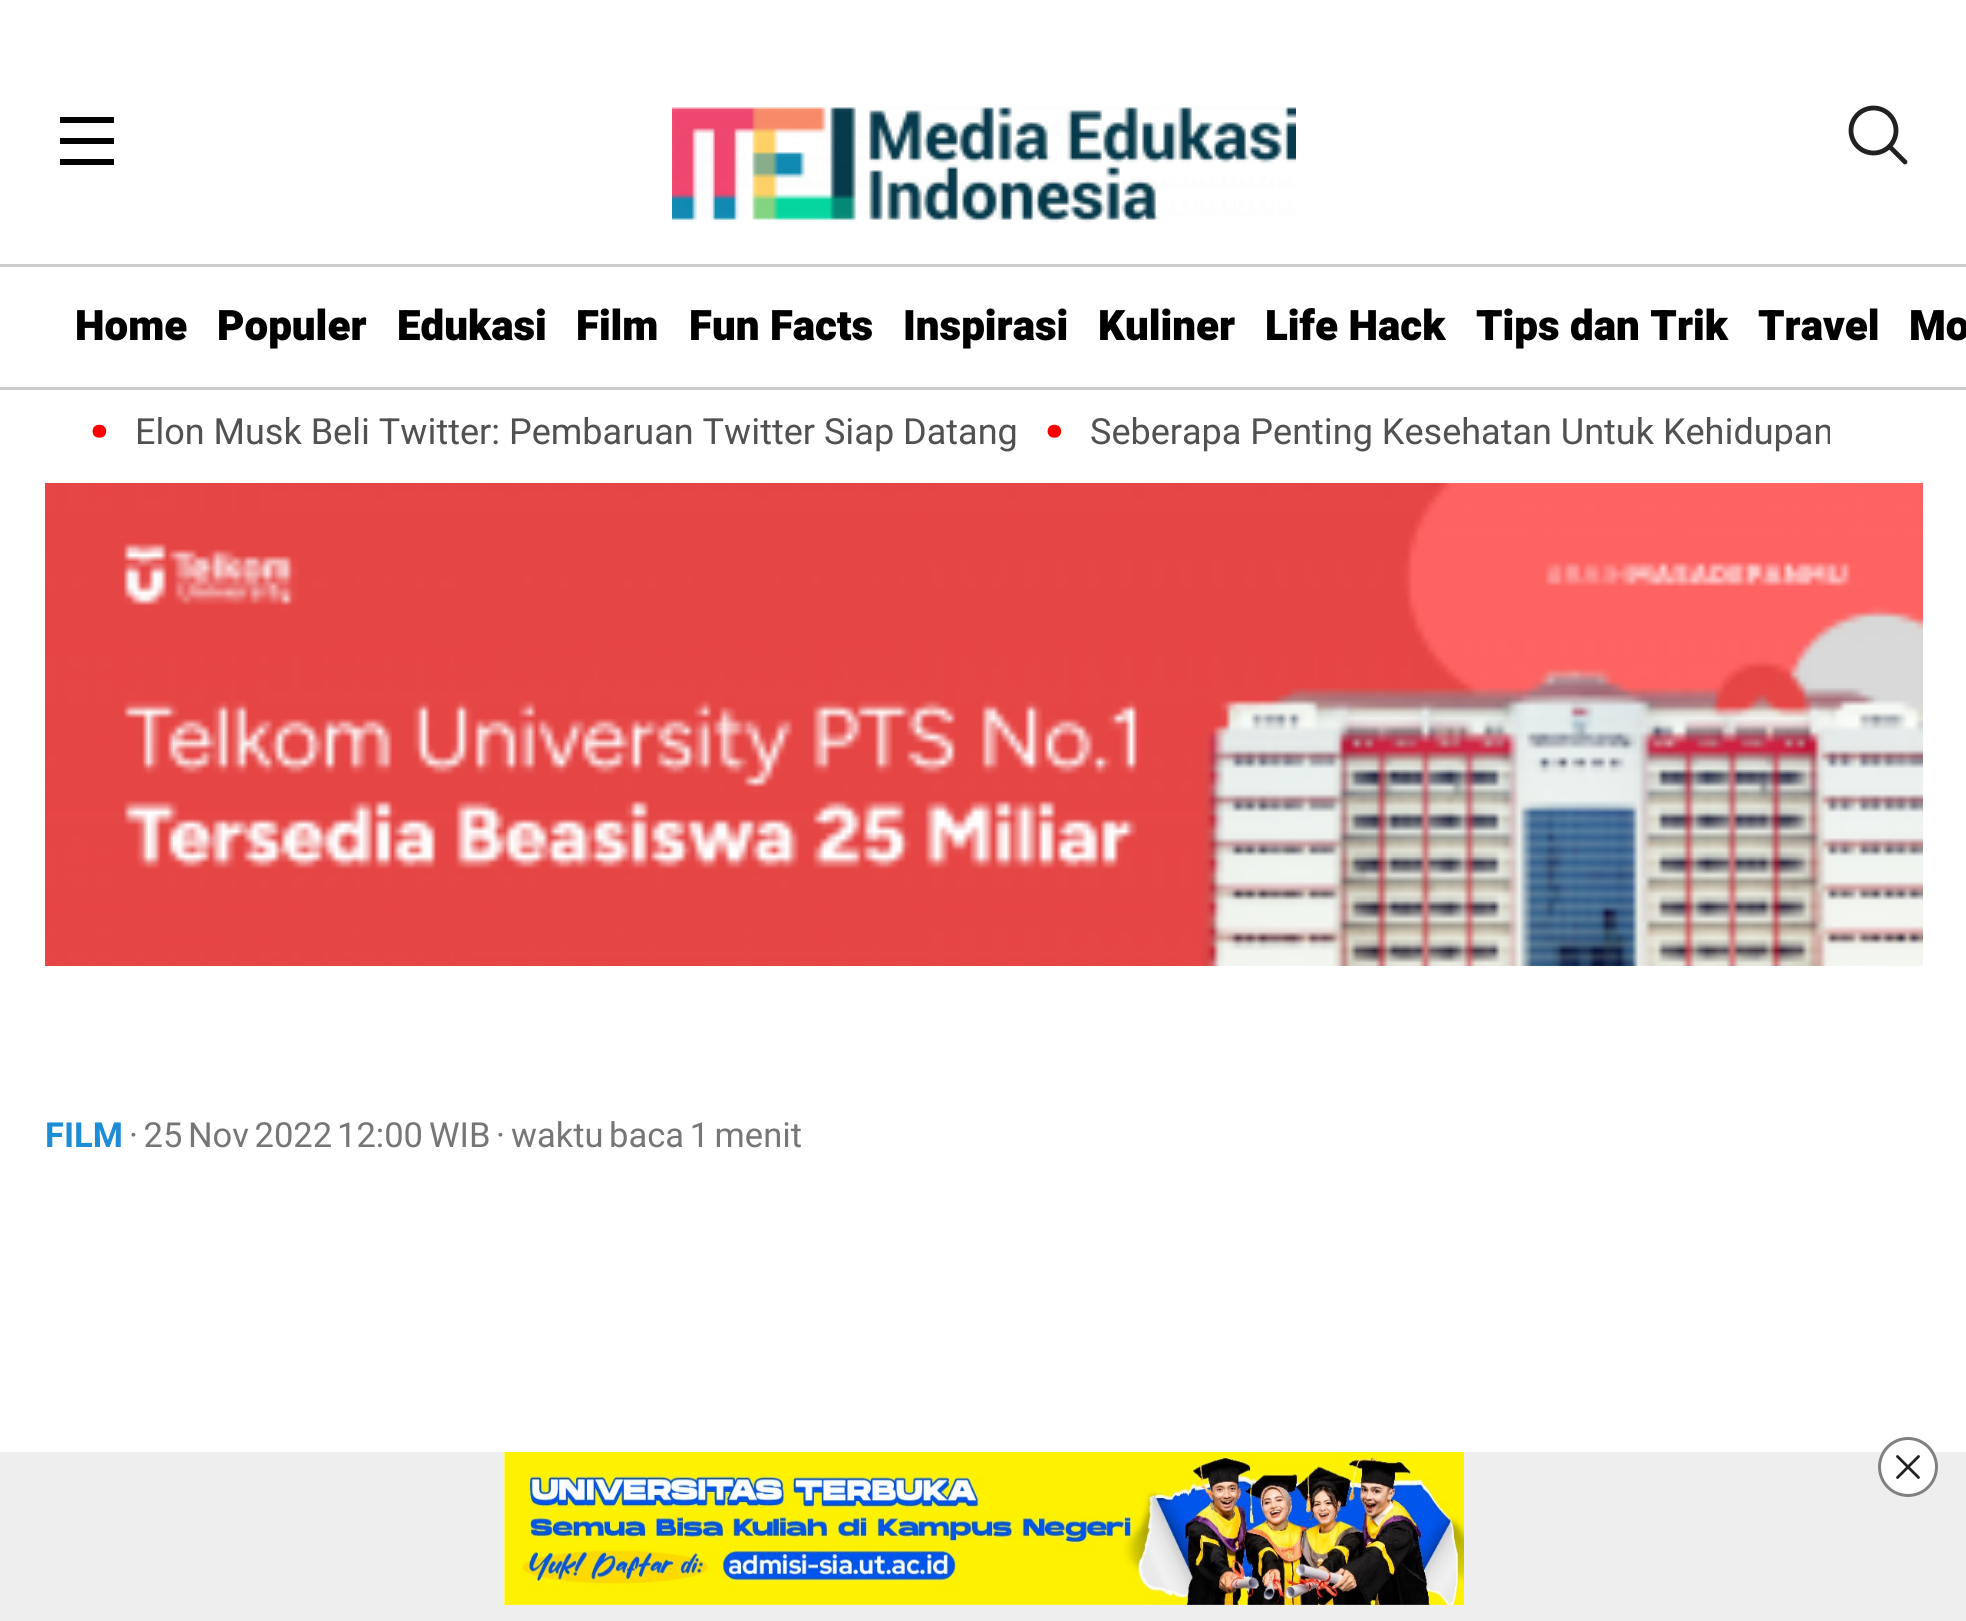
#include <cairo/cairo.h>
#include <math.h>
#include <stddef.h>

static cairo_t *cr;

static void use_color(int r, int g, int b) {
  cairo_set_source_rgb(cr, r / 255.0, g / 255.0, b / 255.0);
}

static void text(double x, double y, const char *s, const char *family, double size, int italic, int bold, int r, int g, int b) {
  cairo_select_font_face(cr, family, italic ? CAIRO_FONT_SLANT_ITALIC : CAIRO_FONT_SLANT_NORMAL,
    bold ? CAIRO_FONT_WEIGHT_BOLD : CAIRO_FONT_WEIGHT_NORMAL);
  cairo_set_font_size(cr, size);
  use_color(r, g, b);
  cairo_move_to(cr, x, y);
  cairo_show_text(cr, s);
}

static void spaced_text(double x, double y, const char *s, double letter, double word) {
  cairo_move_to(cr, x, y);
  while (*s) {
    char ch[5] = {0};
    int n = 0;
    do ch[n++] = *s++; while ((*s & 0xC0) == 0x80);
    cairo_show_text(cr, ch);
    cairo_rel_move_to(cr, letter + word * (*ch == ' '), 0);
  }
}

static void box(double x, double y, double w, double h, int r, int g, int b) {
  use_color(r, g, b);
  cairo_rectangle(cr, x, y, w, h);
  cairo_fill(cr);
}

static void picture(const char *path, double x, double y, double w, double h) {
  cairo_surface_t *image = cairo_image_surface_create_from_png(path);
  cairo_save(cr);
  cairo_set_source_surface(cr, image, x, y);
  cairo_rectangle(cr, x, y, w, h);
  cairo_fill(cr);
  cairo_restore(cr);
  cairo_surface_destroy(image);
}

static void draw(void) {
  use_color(255, 255, 255);
  cairo_paint(cr);
  box(60, 117, 54, 6, 0, 0, 0);
  box(60, 138, 54, 6, 0, 0, 0);
  box(60, 159, 54, 6, 0, 0, 0);
  picture("img_01.png", 672, 107, 624, 116);
  cairo_arc(cr, 1873.5, 130.5, 22.5, 0, 2 * M_PI);
  use_color(33, 33, 33);
  cairo_set_line_width(cr, 4.8);
  cairo_stroke(cr);
  cairo_new_path(cr);
  cairo_move_to(cr, 1905, 162);
  cairo_line_to(cr, 1889.5, 146.5);
  cairo_set_line_cap(cr, CAIRO_LINE_CAP_ROUND);
  cairo_set_line_join(cr, CAIRO_LINE_JOIN_ROUND);
  cairo_stroke(cr);
  box(0, 264, 1966, 3, 204, 204, 204);
  box(0, 387, 1966, 3, 204, 204, 204);
  picture("img_02.png", 45, 483, 1878, 483);
  box(0, 1452, 1966, 169, 238, 238, 238);
  picture("img_03.png", 504, 1452, 960, 153);
  use_color(255, 255, 255);
  cairo_arc(cr, 1908, 1467, 30, 0, 2 * M_PI);
  cairo_fill(cr);
  cairo_new_path(cr);
  cairo_move_to(cr, 1918.5, 1456.5);
  cairo_line_to(cr, 1897.5, 1477.5);
  cairo_move_to(cr, 1897.5, 1456.5);
  cairo_line_to(cr, 1918.5, 1477.5);
  use_color(33, 33, 33);
  cairo_set_line_width(cr, 2.8);
  cairo_stroke(cr);
  cairo_arc(cr, 1908, 1467, 28.5, 0, 2 * M_PI);
  use_color(128, 128, 128);
  cairo_set_line_width(cr, 3);
  cairo_set_line_cap(cr, CAIRO_LINE_CAP_BUTT);
  cairo_set_line_join(cr, CAIRO_LINE_JOIN_MITER);
  cairo_stroke(cr);
  text(75, 340, "Home", "Heebo Black", 42, 0, 0, 0, 0, 0);
  text(217, 340, "Populer", "Heebo Black", 42, 0, 0, 0, 0, 0);
  text(397, 340, "Edukasi", "Heebo Black", 42, 0, 0, 0, 0, 0);
  text(576, 340, "Film", "Heebo Black", 42, 0, 0, 0, 0, 0);
  text(689, 340, "Fun Facts", "Heebo Black", 42, 0, 0, 0, 0, 0);
  text(903, 340, "Inspirasi", "Heebo Black", 42, 0, 0, 0, 0, 0);
  text(1098, 340, "Kuliner", "Heebo Black", 42, 0, 0, 0, 0, 0);
  text(1265, 340, "Life Hack", "Heebo Black", 42, 0, 0, 0, 0, 0);
  text(1476, 340, "Tips dan Trik", "Heebo Black", 42, 0, 0, 0, 0, 0);
  text(1758, 340, "Travel", "Heebo Black", 42, 0, 0, 0, 0, 0);
  text(1909, 340, "Mo", "Heebo Black", 42, 0, 0, 0, 0, 0);
  text(84, 474, "·", "Heebo", 120, 0, 0, 255, 0, 0);
  text(135, 444, "Elon Musk Beli Twitter: Pembaruan Twitter Siap Datang", "Heebo", 36, 0, 0, 81, 81, 81);
  text(1039, 474, "·", "Heebo", 120, 0, 0, 255, 0, 0);
  cairo_save(cr);
  cairo_rectangle(cr, 60, 375, 1770, 108);
  cairo_clip(cr);
  text(1090, 444, "Seberapa Penting Kesehatan Untuk Kehidupan", "Heebo", 36, 0, 0, 81, 81, 81);
  cairo_restore(cr);
  text(45, 1147, "FILM", "Heebo", 34.5, 0, 1, 31, 141, 214);
  cairo_select_font_face(cr, "Heebo", CAIRO_FONT_SLANT_NORMAL, CAIRO_FONT_WEIGHT_NORMAL);
  use_color(118, 118, 118);
  spaced_text(129, 1147, "· 25 Nov 2022", 0, -3);
  text(337, 1147, "12:00", "Heebo", 34.5, 0, 0, 118, 118, 118);
  text(429, 1147, "WIB", "Heebo", 34.5, 0, 0, 118, 118, 118);
  text(496, 1147, "·", "Heebo", 34.5, 0, 0, 118, 118, 118);
  spaced_text(511, 1147, "waktu baca 1 menit", 0, -3);
}

int main(void) {
  cairo_surface_t *surface = cairo_image_surface_create(CAIRO_FORMAT_RGB24, 1966, 1621);
  cr = cairo_create(surface);
  cairo_font_options_t *options = cairo_font_options_create();
  cairo_font_options_set_hint_metrics(options, CAIRO_HINT_METRICS_OFF);
  cairo_font_options_set_hint_style(options, CAIRO_HINT_STYLE_NONE);
  cairo_set_font_options(cr, options);
  cairo_set_miter_limit(cr, 4);
  draw();
  cairo_surface_write_to_png(surface, "out.png");
  cairo_font_options_destroy(options);
  cairo_destroy(cr);
  cairo_surface_destroy(surface);
  return 0;
}
